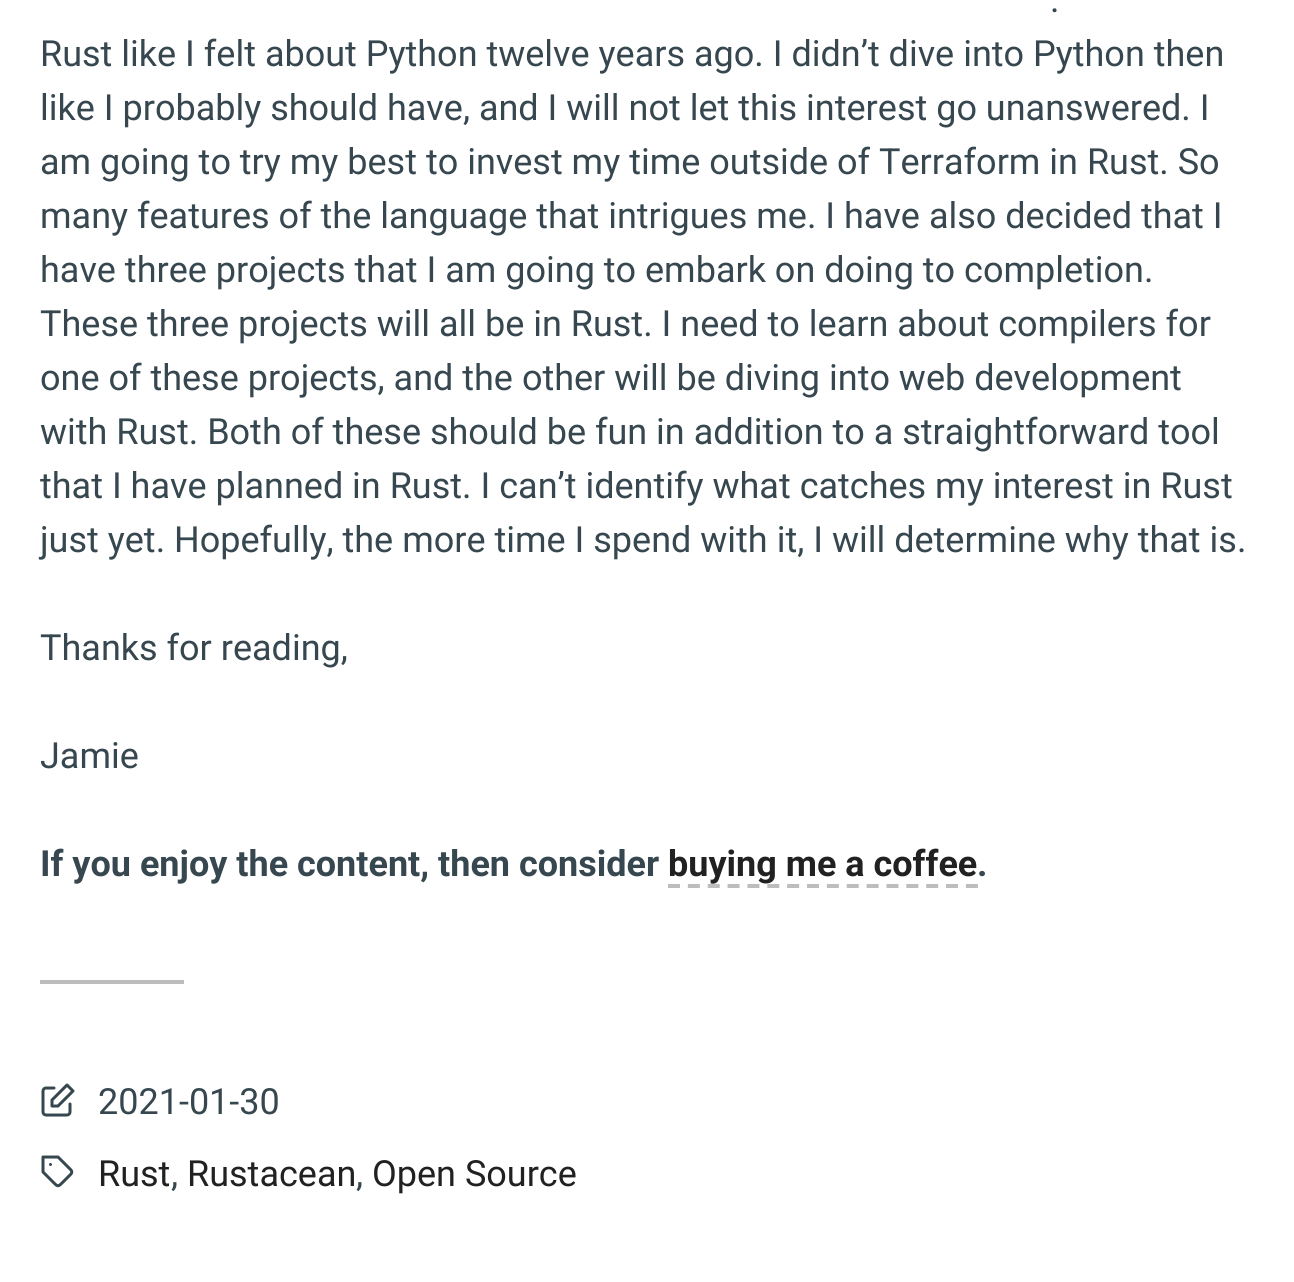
#include <cairo/cairo.h>
#include <math.h>
#include <stddef.h>

static cairo_t *cr;

static void use_color(int r, int g, int b) {
  cairo_set_source_rgb(cr, r / 255.0, g / 255.0, b / 255.0);
}

static void text(double x, double y, const char *s, const char *family, double size, int italic, int bold, int r, int g, int b) {
  cairo_select_font_face(cr, family, italic ? CAIRO_FONT_SLANT_ITALIC : CAIRO_FONT_SLANT_NORMAL,
    bold ? CAIRO_FONT_WEIGHT_BOLD : CAIRO_FONT_WEIGHT_NORMAL);
  cairo_set_font_size(cr, size);
  use_color(r, g, b);
  cairo_move_to(cr, x, y);
  cairo_show_text(cr, s);
}

static void box(double x, double y, double w, double h, int r, int g, int b) {
  use_color(r, g, b);
  cairo_rectangle(cr, x, y, w, h);
  cairo_fill(cr);
}

static void picture(const char *path, double x, double y, double w, double h) {
  cairo_surface_t *image = cairo_image_surface_create_from_png(path);
  cairo_save(cr);
  cairo_set_source_surface(cr, image, x, y);
  cairo_rectangle(cr, x, y, w, h);
  cairo_fill(cr);
  cairo_restore(cr);
  cairo_surface_destroy(image);
}

static void draw(void) {
  use_color(255, 255, 255);
  cairo_paint(cr);
  cairo_new_path(cr);
  cairo_move_to(cr, 668, 886);
  cairo_line_to(cr, 978, 886);
  use_color(189, 189, 189);
  cairo_set_line_width(cr, 4);
  cairo_set_dash(cr, (double[]){12, 7.86}, 2, 0);
  cairo_stroke(cr);
  box(40, 980, 144, 4, 189, 189, 189);
  picture("img_01.png", 41, 1083, 34, 34);
  cairo_new_path(cr);
  cairo_move_to(cr, 71, 1174);
  cairo_line_to(cr, 62, 1183);
  cairo_curve_to(cr, 58, 1187, 57.5, 1186.5, 53.5, 1182.5);
  cairo_line_to(cr, 43, 1172);
  cairo_line_to(cr, 43, 1157);
  cairo_line_to(cr, 58, 1157);
  cairo_line_to(cr, 71, 1170);
  cairo_curve_to(cr, 72, 1171, 72, 1173, 71, 1174);
  cairo_close_path(cr);
  cairo_move_to(cr, 50.5, 1164.5);
  cairo_line_to(cr, 50.5, 1164.5);
  use_color(55, 71, 79);
  cairo_set_line_width(cr, 3);
  cairo_set_line_cap(cr, CAIRO_LINE_CAP_ROUND);
  cairo_set_line_join(cr, CAIRO_LINE_JOIN_ROUND);
  cairo_set_dash(cr, NULL, 0, 0);
  cairo_stroke(cr);
  text(1050, 12, ".", "Roboto", 36, 0, 0, 55, 71, 79);
  text(40, 66, "Rust like I felt about Python twelve years ago. I didn’t dive into Python then", "Roboto", 36, 0, 0, 55, 71, 79);
  text(40, 120, "like I probably should have, and I will not let this interest go unanswered. I", "Roboto", 36, 0, 0, 55, 71, 79);
  text(40, 174, "am going to try my best to invest my time outside of Terraform in Rust. So", "Roboto", 36, 0, 0, 55, 71, 79);
  text(40, 228, "many features of the language that intrigues me. I have also decided that I", "Roboto", 36, 0, 0, 55, 71, 79);
  text(40, 282, "have three projects that I am going to embark on doing to completion.", "Roboto", 36, 0, 0, 55, 71, 79);
  text(40, 336, "These three projects will all be in Rust. I need to learn about compilers for", "Roboto", 36, 0, 0, 55, 71, 79);
  text(40, 390, "one of these projects, and the other will be diving into web development", "Roboto", 36, 0, 0, 55, 71, 79);
  text(40, 444, "with Rust. Both of these should be fun in addition to a straightforward tool", "Roboto", 36, 0, 0, 55, 71, 79);
  text(40, 498, "that I have planned in Rust. I can’t identify what catches my interest in Rust", "Roboto", 36, 0, 0, 55, 71, 79);
  text(40, 552, "just yet. Hopefully, the more time I spend with it, I will determine why that is.", "Roboto", 36, 0, 0, 55, 71, 79);
  text(40, 660, "Thanks for reading,", "Roboto", 36, 0, 0, 55, 71, 79);
  text(40, 768, "Jamie", "Roboto", 36, 0, 0, 55, 71, 79);
  text(40, 876, "If you enjoy the content, then consider", "Roboto", 36, 0, 1, 55, 71, 79);
  text(668, 876, "buying me a coffee", "Roboto", 36, 0, 1, 33, 33, 33);
  text(977, 876, ".", "Roboto", 36, 0, 1, 55, 71, 79);
  text(98, 1114, "2021-01-30", "Roboto", 36, 0, 0, 55, 71, 79);
  text(98, 1186, "Rust", "Roboto", 36, 0, 0, 33, 33, 33);
  text(171, 1186, ",", "Roboto", 36, 0, 0, 55, 71, 79);
  text(187, 1186, "Rustacean", "Roboto", 36, 0, 0, 33, 33, 33);
  text(356, 1186, ",", "Roboto", 36, 0, 0, 55, 71, 79);
  text(372, 1186, "Open Source", "Roboto", 36, 0, 0, 33, 33, 33);
}

int main(void) {
  cairo_surface_t *surface = cairo_image_surface_create(CAIRO_FORMAT_RGB24, 1294, 1282);
  cr = cairo_create(surface);
  cairo_font_options_t *options = cairo_font_options_create();
  cairo_font_options_set_hint_metrics(options, CAIRO_HINT_METRICS_OFF);
  cairo_font_options_set_hint_style(options, CAIRO_HINT_STYLE_NONE);
  cairo_set_font_options(cr, options);
  cairo_set_miter_limit(cr, 4);
  draw();
  cairo_surface_write_to_png(surface, "out.png");
  cairo_font_options_destroy(options);
  cairo_destroy(cr);
  cairo_surface_destroy(surface);
  return 0;
}
